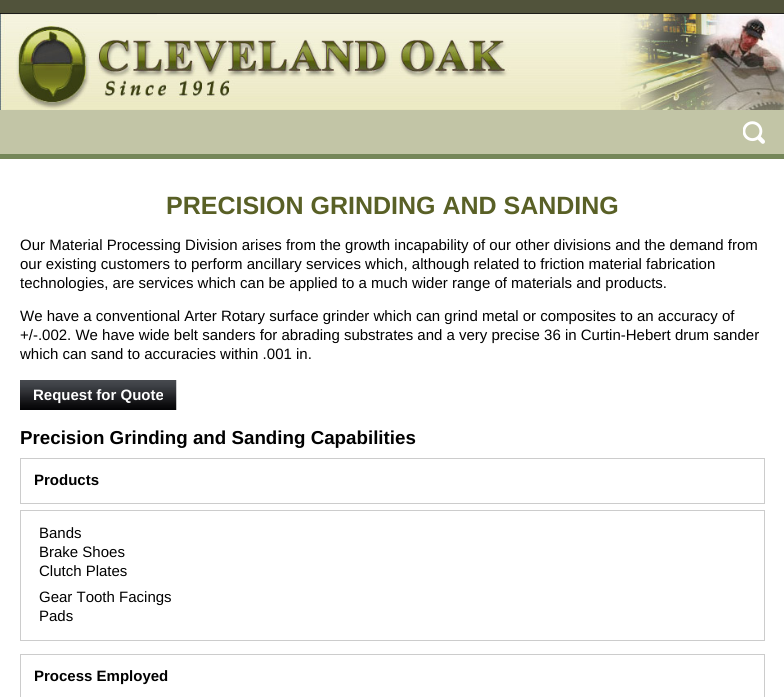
#include <cairo/cairo.h>
#include <math.h>
#include <stddef.h>

static cairo_t *cr;

static void use_color(int r, int g, int b) {
  cairo_set_source_rgb(cr, r / 255.0, g / 255.0, b / 255.0);
}

static void text(double x, double y, const char *s, const char *family, double size, int italic, int bold, int r, int g, int b) {
  cairo_select_font_face(cr, family, italic ? CAIRO_FONT_SLANT_ITALIC : CAIRO_FONT_SLANT_NORMAL,
    bold ? CAIRO_FONT_WEIGHT_BOLD : CAIRO_FONT_WEIGHT_NORMAL);
  cairo_set_font_size(cr, size);
  use_color(r, g, b);
  cairo_move_to(cr, x, y);
  cairo_show_text(cr, s);
}

static void box(double x, double y, double w, double h, int r, int g, int b) {
  use_color(r, g, b);
  cairo_rectangle(cr, x, y, w, h);
  cairo_fill(cr);
}

static void picture(const char *path, double x, double y, double w, double h) {
  cairo_surface_t *image = cairo_image_surface_create_from_png(path);
  cairo_save(cr);
  cairo_set_source_surface(cr, image, x, y);
  cairo_rectangle(cr, x, y, w, h);
  cairo_fill(cr);
  cairo_restore(cr);
  cairo_surface_destroy(image);
}

static void draw(void) {
  use_color(255, 255, 255);
  cairo_paint(cr);
  picture("img_01.png", 0, 0, 784, 13);
  box(0, 13, 784, 1, 0, 0, 0);
  box(0, 110, 784, 44, 194, 197, 166);
  picture("img_02.png", 0, 13, 784, 1);
  picture("img_03.png", 0, 13, 784, 97);
  picture("img_04.png", 743, 121, 22, 23);
  box(0, 154, 784, 5, 117, 135, 89);
  picture("img_05.png", 20, 380, 157, 30);
  cairo_rectangle(cr, 20.5, 458.5, 744, 45);
  use_color(204, 204, 204);
  cairo_set_line_width(cr, 1);
  cairo_stroke(cr);
  cairo_rectangle(cr, 20.5, 510.5, 744, 130);
  cairo_stroke(cr);
  cairo_rectangle(cr, 20.5, 654.5, 744, 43);
  cairo_stroke(cr);
  text(166, 214, "PRECISION GRINDING AND SANDING", "Liberation Sans", 25, 0, 1, 89, 96, 38);
  text(20, 250, "Our Material Processing Division arises from the growth incapability of our other divisions and the demand from", "Liberation Sans", 15, 0, 0, 0, 0, 0);
  text(20, 269, "our existing customers to perform ancillary services which, although related to friction material fabrication", "Liberation Sans", 15, 0, 0, 0, 0, 0);
  text(20, 288, "technologies, are services which can be applied to a much wider range of materials and products.", "Liberation Sans", 15, 0, 0, 0, 0, 0);
  text(20, 321, "We have a conventional Arter Rotary surface grinder which can grind metal or composites to an accuracy of", "Liberation Sans", 15, 0, 0, 0, 0, 0);
  text(20, 340, "+/-.002. We have wide belt sanders for abrading substrates and a very precise 36 in Curtin-Hebert drum sander", "Liberation Sans", 15, 0, 0, 0, 0, 0);
  text(20, 359, "which can sand to accuracies within .001 in.", "Liberation Sans", 15, 0, 0, 0, 0, 0);
  text(33, 400, "Request for Quote", "Liberation Sans", 15, 0, 1, 255, 255, 255);
  text(20, 444, "Precision Grinding and Sanding Capabilities", "Liberation Sans", 18.75, 0, 1, 0, 0, 0);
  text(34, 485, "Products", "Liberation Sans", 15, 0, 1, 0, 0, 0);
  text(39, 538, "Bands", "Liberation Sans", 15, 0, 0, 0, 0, 0);
  text(39, 557, "Brake Shoes", "Liberation Sans", 15, 0, 0, 0, 0, 0);
  text(39, 576, "Clutch Plates", "Liberation Sans", 15, 0, 0, 0, 0, 0);
  text(39, 602, "Gear Tooth Facings", "Liberation Sans", 15, 0, 0, 0, 0, 0);
  text(39, 621, "Pads", "Liberation Sans", 15, 0, 0, 0, 0, 0);
  text(34, 681, "Process Employed", "Liberation Sans", 15, 0, 1, 0, 0, 0);
}

int main(void) {
  cairo_surface_t *surface = cairo_image_surface_create(CAIRO_FORMAT_RGB24, 784, 697);
  cr = cairo_create(surface);
  cairo_font_options_t *options = cairo_font_options_create();
  cairo_font_options_set_hint_metrics(options, CAIRO_HINT_METRICS_OFF);
  cairo_font_options_set_hint_style(options, CAIRO_HINT_STYLE_NONE);
  cairo_set_font_options(cr, options);
  cairo_set_miter_limit(cr, 4);
  draw();
  cairo_surface_write_to_png(surface, "out.png");
  cairo_font_options_destroy(options);
  cairo_destroy(cr);
  cairo_surface_destroy(surface);
  return 0;
}
